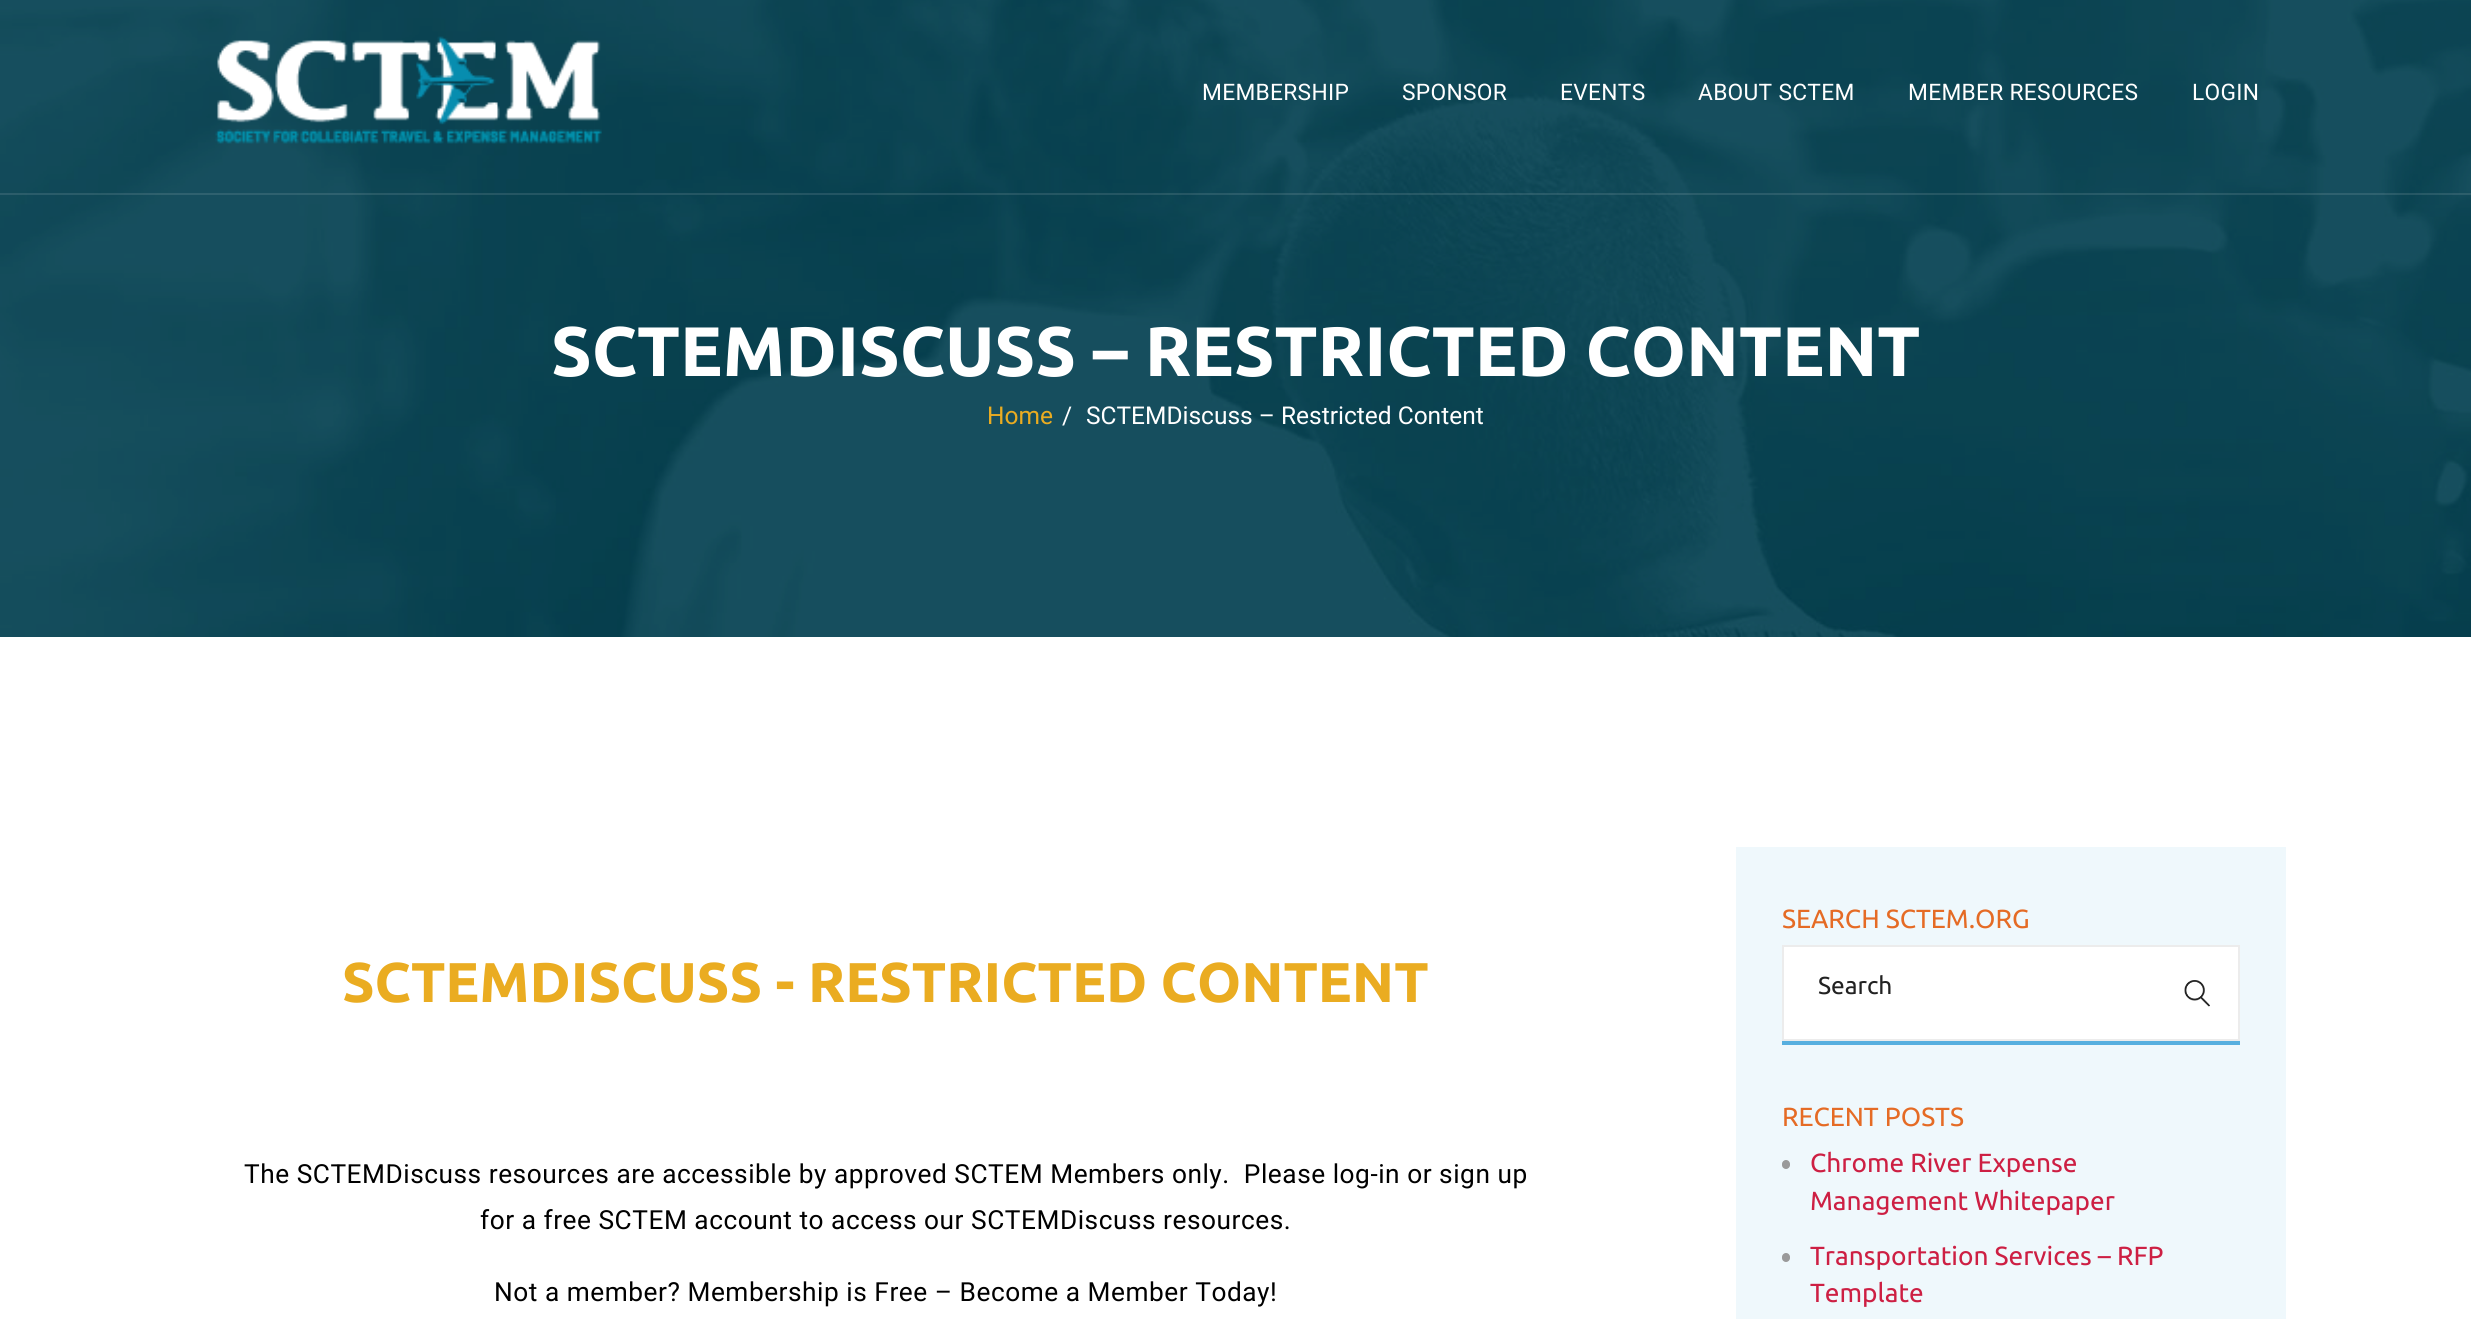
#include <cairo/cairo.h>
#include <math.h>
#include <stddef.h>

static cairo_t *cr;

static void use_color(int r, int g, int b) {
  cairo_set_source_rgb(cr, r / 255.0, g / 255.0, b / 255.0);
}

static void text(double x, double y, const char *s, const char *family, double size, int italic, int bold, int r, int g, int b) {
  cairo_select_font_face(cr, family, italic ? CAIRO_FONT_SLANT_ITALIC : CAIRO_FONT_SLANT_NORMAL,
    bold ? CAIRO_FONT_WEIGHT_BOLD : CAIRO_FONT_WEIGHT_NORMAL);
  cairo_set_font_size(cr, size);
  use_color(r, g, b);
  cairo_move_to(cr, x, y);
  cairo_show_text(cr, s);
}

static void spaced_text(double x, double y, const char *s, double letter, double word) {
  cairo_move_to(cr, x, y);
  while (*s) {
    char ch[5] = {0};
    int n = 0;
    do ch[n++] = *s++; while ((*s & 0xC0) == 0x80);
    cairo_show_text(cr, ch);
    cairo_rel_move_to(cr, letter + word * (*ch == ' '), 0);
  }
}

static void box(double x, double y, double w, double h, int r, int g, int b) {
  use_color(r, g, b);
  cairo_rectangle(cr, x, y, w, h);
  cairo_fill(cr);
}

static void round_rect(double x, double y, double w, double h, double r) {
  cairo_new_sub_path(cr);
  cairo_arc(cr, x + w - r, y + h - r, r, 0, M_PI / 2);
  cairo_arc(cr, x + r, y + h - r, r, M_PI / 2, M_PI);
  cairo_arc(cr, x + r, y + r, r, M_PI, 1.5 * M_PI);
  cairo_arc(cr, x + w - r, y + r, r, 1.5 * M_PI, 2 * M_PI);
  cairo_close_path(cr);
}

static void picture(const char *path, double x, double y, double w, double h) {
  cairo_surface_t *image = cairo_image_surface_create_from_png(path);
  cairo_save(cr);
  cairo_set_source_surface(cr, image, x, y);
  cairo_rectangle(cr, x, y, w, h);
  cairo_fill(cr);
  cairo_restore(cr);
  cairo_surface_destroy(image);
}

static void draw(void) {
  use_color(255, 255, 255);
  cairo_paint(cr);
  picture("img_02.png", 0, 0, 2471, 637);
  cairo_set_source_rgba(cr, 0.925, 0.925, 0.925, 0.12);
  cairo_rectangle(cr, 0, 193, 2471, 2);
  cairo_fill(cr);
  picture("img_01.png", 215, 36, 387, 108);
  box(1736, 847, 550, 472, 239, 248, 252);
  box(1782, 1041, 458, 4, 87, 175, 223);
  use_color(255, 255, 255);
  cairo_rectangle(cr, 1783, 946, 456, 94);
  cairo_fill_preserve(cr);
  use_color(236, 236, 236);
  cairo_stroke(cr);
  picture("img_03.png", 2184, 980, 26, 27);
  use_color(154, 154, 154);
  round_rect(1782, 1160, 8, 9, 4);
  cairo_fill(cr);
  round_rect(1782, 1253, 8, 9, 4);
  cairo_fill(cr);
  cairo_select_font_face(cr, "Roboto", CAIRO_FONT_SLANT_NORMAL, CAIRO_FONT_WEIGHT_NORMAL);
  cairo_set_font_size(cr, 22.75);
  use_color(255, 255, 255);
  spaced_text(1202, 100, "MEMBERSHIP", 0.3, 0);
  spaced_text(1402, 100, "SPONSOR", 0.3, 0);
  spaced_text(1560, 100, "EVENTS", 0.3, 0);
  spaced_text(1698, 100, "ABOUT SCTEM", 0.3, 0);
  spaced_text(1908, 100, "MEMBER RESOURCES", 0.3, 0);
  spaced_text(2192, 100, "LOGIN", 0.3, 0);
  text(551, 376, "SCTEMDISCUSS – RESTRICTED CONTENT", "Ubuntu", 70, 0, 1, 255, 255, 255);
  text(987, 424, "Home", "Roboto", 24.5, 0, 0, 234, 172, 33);
  text(1062, 424, "/", "Roboto", 24.5, 0, 0, 255, 255, 255);
  text(1086, 424, "SCTEMDiscuss – Restricted Content", "Roboto", 24.5, 0, 0, 255, 255, 255);
  text(342, 1002, "SCTEMDISCUSS - RESTRICTED CONTENT", "Ubuntu", 56, 0, 1, 234, 172, 33);
  cairo_select_font_face(cr, "Roboto", CAIRO_FONT_SLANT_NORMAL, CAIRO_FONT_WEIGHT_NORMAL);
  cairo_set_font_size(cr, 26.25);
  use_color(0, 0, 0);
  spaced_text(244, 1183, "The SCTEMDiscuss resources are accessible by approved SCTEM Members only.  Please log-in or sign up", 0.53, 0);
  spaced_text(480, 1229, "for a free SCTEM account to access our SCTEMDiscuss resources.", 0.53, 0);
  spaced_text(494, 1301, "Not a member? Membership is Free – Become a Member Today!", 0.53, 0);
  text(1782, 928, "SEARCH SCTEM.ORG", "Ubuntu", 26.25, 0, 0, 229, 107, 37);
  text(1818, 994, "Search", "Ubuntu", 24.5, 0, 0, 34, 34, 34);
  text(1782, 1126, "RECENT POSTS", "Ubuntu", 26.25, 0, 0, 229, 107, 37);
  text(1810, 1172, "Chrome River Expense", "Ubuntu", 26.25, 0, 0, 205, 31, 67);
  text(1810, 1210, "Management Whitepaper", "Ubuntu", 26.25, 0, 0, 205, 31, 67);
  text(1810, 1265, "Transportation Services – RFP", "Ubuntu", 26.25, 0, 0, 205, 31, 67);
  text(1810, 1302, "Template", "Ubuntu", 26.25, 0, 0, 205, 31, 67);
}

int main(void) {
  cairo_surface_t *surface = cairo_image_surface_create(CAIRO_FORMAT_RGB24, 2471, 1319);
  cr = cairo_create(surface);
  cairo_font_options_t *options = cairo_font_options_create();
  cairo_font_options_set_hint_metrics(options, CAIRO_HINT_METRICS_OFF);
  cairo_font_options_set_hint_style(options, CAIRO_HINT_STYLE_NONE);
  cairo_set_font_options(cr, options);
  cairo_set_miter_limit(cr, 4);
  draw();
  cairo_surface_write_to_png(surface, "out.png");
  cairo_font_options_destroy(options);
  cairo_destroy(cr);
  cairo_surface_destroy(surface);
  return 0;
}
